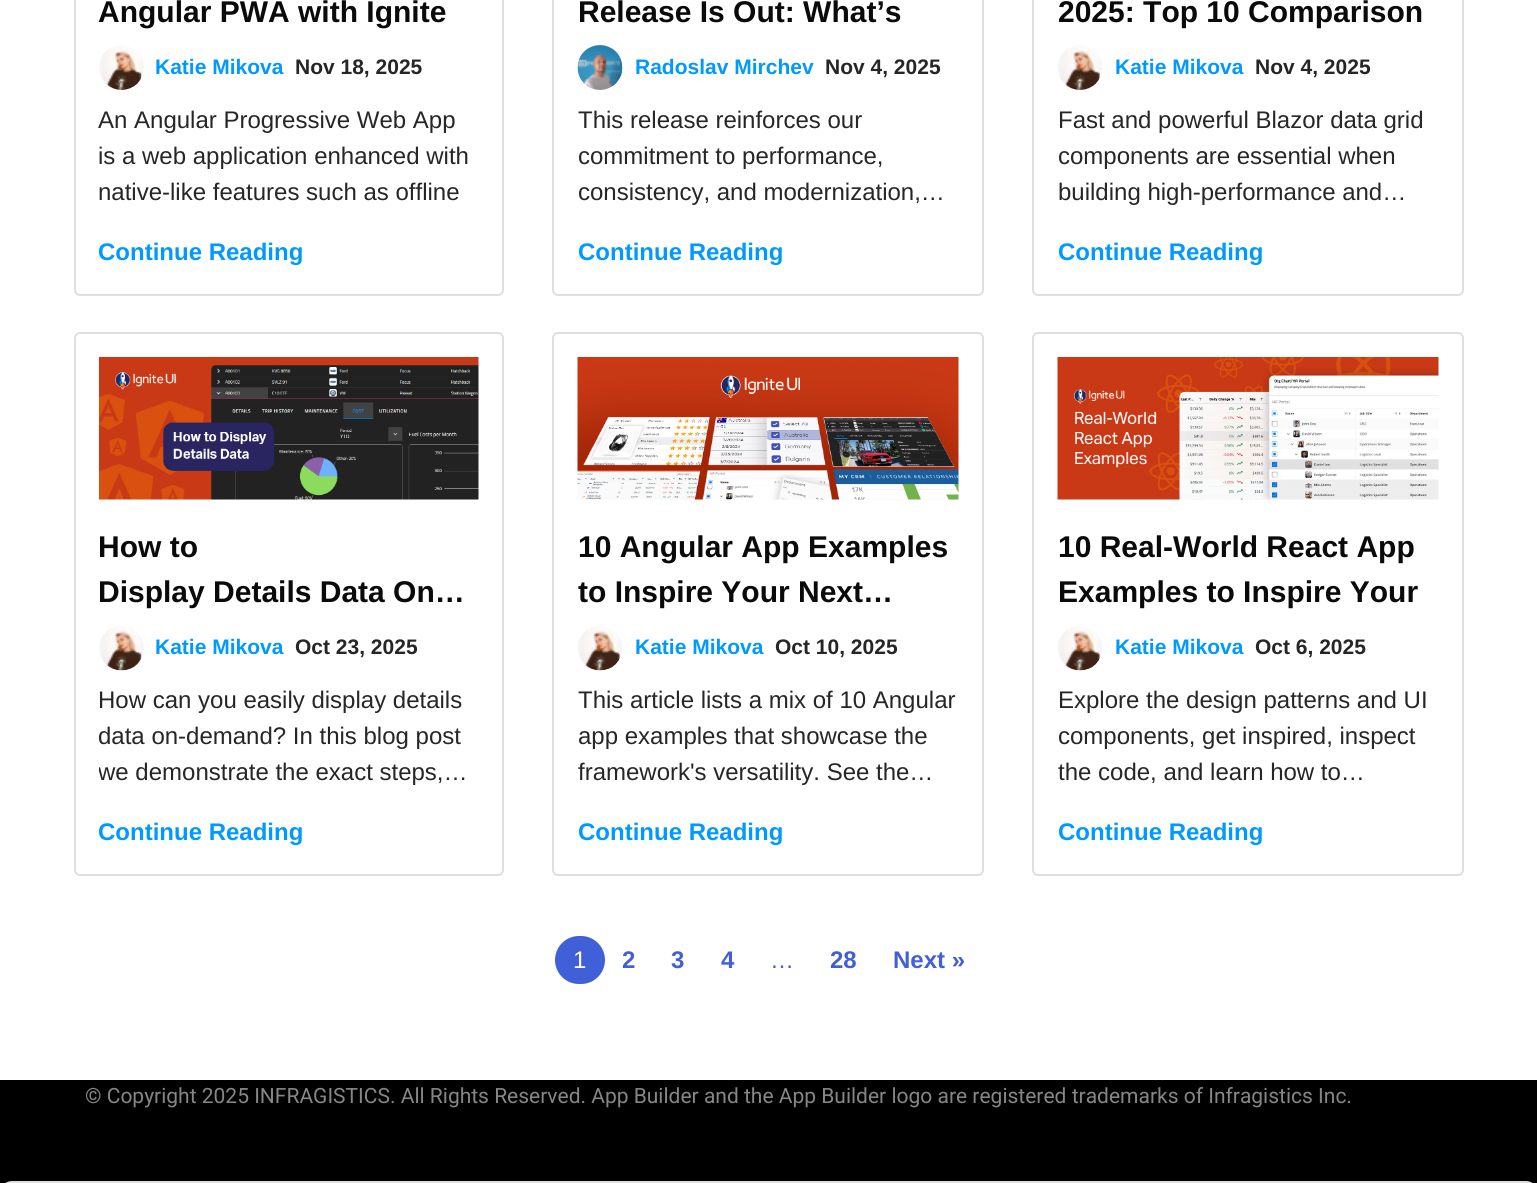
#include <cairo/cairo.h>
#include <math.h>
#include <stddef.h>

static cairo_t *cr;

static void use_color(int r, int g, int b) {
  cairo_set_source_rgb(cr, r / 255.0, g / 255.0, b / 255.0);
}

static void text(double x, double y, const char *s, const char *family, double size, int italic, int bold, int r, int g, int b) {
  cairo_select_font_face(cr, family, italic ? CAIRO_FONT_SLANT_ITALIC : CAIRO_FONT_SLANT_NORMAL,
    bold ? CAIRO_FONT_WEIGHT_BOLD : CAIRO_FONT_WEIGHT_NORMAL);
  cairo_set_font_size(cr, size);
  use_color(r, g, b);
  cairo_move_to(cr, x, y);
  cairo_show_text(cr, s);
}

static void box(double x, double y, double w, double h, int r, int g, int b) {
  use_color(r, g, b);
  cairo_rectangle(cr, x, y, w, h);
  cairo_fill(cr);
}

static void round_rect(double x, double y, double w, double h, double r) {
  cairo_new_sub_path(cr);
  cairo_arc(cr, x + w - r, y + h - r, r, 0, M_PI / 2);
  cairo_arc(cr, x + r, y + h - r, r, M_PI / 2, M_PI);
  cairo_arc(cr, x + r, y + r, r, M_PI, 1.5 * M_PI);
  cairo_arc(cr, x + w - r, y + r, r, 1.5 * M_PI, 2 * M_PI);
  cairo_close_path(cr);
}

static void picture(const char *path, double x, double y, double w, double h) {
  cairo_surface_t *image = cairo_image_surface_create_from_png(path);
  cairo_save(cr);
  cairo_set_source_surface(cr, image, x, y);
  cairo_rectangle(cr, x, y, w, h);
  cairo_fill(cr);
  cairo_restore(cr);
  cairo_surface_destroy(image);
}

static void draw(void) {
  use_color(255, 255, 255);
  cairo_paint(cr);
  round_rect(75, -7, 428, 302, 5);
  use_color(223, 223, 223);
  cairo_stroke(cr);
  picture("img_01.png", 99, 45, 45, 45);
  round_rect(553, -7, 430, 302, 5);
  cairo_stroke(cr);
  picture("img_02.png", 577, 45, 46, 45);
  round_rect(1033, -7, 430, 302, 5);
  cairo_stroke(cr);
  picture("img_03.png", 1058, 45, 44, 45);
  round_rect(75, 333, 428, 542, 5);
  cairo_stroke(cr);
  picture("img_04.png", 99, 357, 380, 143);
  picture("img_05.png", 99, 626, 45, 45);
  round_rect(553, 333, 430, 542, 5);
  cairo_stroke(cr);
  picture("img_06.png", 577, 357, 382, 143);
  picture("img_07.png", 578, 626, 44, 45);
  round_rect(1033, 333, 430, 542, 5);
  cairo_stroke(cr);
  picture("img_08.png", 1057, 357, 382, 143);
  picture("img_09.png", 1058, 626, 44, 45);
  use_color(65, 96, 215);
  round_rect(555, 936, 50, 48, 24);
  cairo_fill(cr);
  box(0, 1080, 1537, 103, 0, 0, 0);
  round_rect(1.5, 1182.5, 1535, 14, 10.5);
  use_color(222, 222, 222);
  cairo_set_line_width(cr, 3);
  cairo_stroke(cr);
  text(98, 22, "Angular PWA with Ignite", "Liberation Sans", 30, 0, 1, 10, 10, 10);
  text(155, 74, "Katie Mikova", "Liberation Sans", 21, 0, 1, 0, 153, 255);
  text(295, 74, "Nov 18, 2025", "Liberation Sans", 21, 0, 1, 38, 38, 38);
  text(98, 128, "An Angular Progressive Web App", "Liberation Sans", 24, 0, 0, 38, 38, 38);
  text(98, 164, "is a web application enhanced with", "Liberation Sans", 24, 0, 0, 38, 38, 38);
  text(98, 200, "native-like features such as offline", "Liberation Sans", 24, 0, 0, 38, 38, 38);
  text(98, 260, "Continue Reading", "Liberation Sans", 24, 0, 1, 0, 153, 255);
  text(578, 22, "Release Is Out: What’s", "Liberation Sans", 30, 0, 1, 10, 10, 10);
  text(635, 74, "Radoslav Mirchev", "Liberation Sans", 21, 0, 1, 0, 153, 255);
  text(825, 74, "Nov 4, 2025", "Liberation Sans", 21, 0, 1, 38, 38, 38);
  text(578, 128, "This release reinforces our", "Liberation Sans", 24, 0, 0, 38, 38, 38);
  text(578, 164, "commitment to performance,", "Liberation Sans", 24, 0, 0, 38, 38, 38);
  text(578, 200, "consistency, and modernization,…", "Liberation Sans", 24, 0, 0, 38, 38, 38);
  text(578, 260, "Continue Reading", "Liberation Sans", 24, 0, 1, 0, 153, 255);
  text(1058, 22, "2025: Top 10 Comparison", "Liberation Sans", 30, 0, 1, 10, 10, 10);
  text(1115, 74, "Katie Mikova", "Liberation Sans", 21, 0, 1, 0, 153, 255);
  text(1255, 74, "Nov 4, 2025", "Liberation Sans", 21, 0, 1, 38, 38, 38);
  text(1058, 128, "Fast and powerful Blazor data grid", "Liberation Sans", 24, 0, 0, 38, 38, 38);
  text(1058, 164, "components are essential when", "Liberation Sans", 24, 0, 0, 38, 38, 38);
  text(1058, 200, "building high-performance and…", "Liberation Sans", 24, 0, 0, 38, 38, 38);
  text(1058, 260, "Continue Reading", "Liberation Sans", 24, 0, 1, 0, 153, 255);
  text(98, 557, "How to", "Liberation Sans", 30, 0, 1, 10, 10, 10);
  text(98, 602, "Display Details Data On…", "Liberation Sans", 30, 0, 1, 10, 10, 10);
  text(155, 654, "Katie Mikova", "Liberation Sans", 21, 0, 1, 0, 153, 255);
  text(295, 654, "Oct 23, 2025", "Liberation Sans", 21, 0, 1, 38, 38, 38);
  text(98, 708, "How can you easily display details", "Liberation Sans", 24, 0, 0, 38, 38, 38);
  text(98, 744, "data on-demand? In this blog post", "Liberation Sans", 24, 0, 0, 38, 38, 38);
  cairo_save(cr);
  cairo_rectangle(cr, 99, 683, 380, 108);
  cairo_clip(cr);
  text(98, 780, "we demonstrate the exact steps,…", "Liberation Sans", 24, 0, 0, 38, 38, 38);
  cairo_restore(cr);
  text(98, 840, "Continue Reading", "Liberation Sans", 24, 0, 1, 0, 153, 255);
  text(578, 557, "10 Angular App Examples", "Liberation Sans", 30, 0, 1, 10, 10, 10);
  text(578, 602, "to Inspire Your Next…", "Liberation Sans", 30, 0, 1, 10, 10, 10);
  text(635, 654, "Katie Mikova", "Liberation Sans", 21, 0, 1, 0, 153, 255);
  text(775, 654, "Oct 10, 2025", "Liberation Sans", 21, 0, 1, 38, 38, 38);
  text(578, 708, "This article lists a mix of 10 Angular", "Liberation Sans", 24, 0, 0, 38, 38, 38);
  text(578, 744, "app examples that showcase the", "Liberation Sans", 24, 0, 0, 38, 38, 38);
  text(578, 780, "framework's versatility. See the…", "Liberation Sans", 24, 0, 0, 38, 38, 38);
  text(578, 840, "Continue Reading", "Liberation Sans", 24, 0, 1, 0, 153, 255);
  text(1058, 557, "10 Real-World React App", "Liberation Sans", 30, 0, 1, 10, 10, 10);
  text(1058, 602, "Examples to Inspire Your", "Liberation Sans", 30, 0, 1, 10, 10, 10);
  text(1115, 654, "Katie Mikova", "Liberation Sans", 21, 0, 1, 0, 153, 255);
  text(1255, 654, "Oct 6, 2025", "Liberation Sans", 21, 0, 1, 38, 38, 38);
  text(1058, 708, "Explore the design patterns and UI", "Liberation Sans", 24, 0, 0, 38, 38, 38);
  text(1058, 744, "components, get inspired, inspect", "Liberation Sans", 24, 0, 0, 38, 38, 38);
  text(1058, 780, "the code, and learn how to…", "Liberation Sans", 24, 0, 0, 38, 38, 38);
  text(1058, 840, "Continue Reading", "Liberation Sans", 24, 0, 1, 0, 153, 255);
  text(573, 968, "1", "Liberation Sans", 24, 0, 0, 255, 255, 255);
  text(622, 968, "2", "Liberation Sans", 24, 0, 1, 65, 96, 215);
  text(671, 968, "3", "Liberation Sans", 24, 0, 1, 65, 96, 215);
  text(721, 968, "4", "Liberation Sans", 24, 0, 1, 65, 96, 215);
  text(770, 968, "…", "Liberation Sans", 24, 0, 0, 65, 96, 215);
  text(830, 968, "28", "Liberation Sans", 24, 0, 1, 65, 96, 215);
  text(893, 968, "Next »", "Liberation Sans", 24, 0, 1, 65, 96, 215);
  text(85, 1103, "© Copyright 2025 INFRAGISTICS. All Rights Reserved. App Builder and the App Builder logo are registered trademarks of Infragistics Inc.", "Roboto", 21, 0, 0, 134, 134, 134);
}

int main(void) {
  cairo_surface_t *surface = cairo_image_surface_create(CAIRO_FORMAT_RGB24, 1537, 1183);
  cr = cairo_create(surface);
  cairo_font_options_t *options = cairo_font_options_create();
  cairo_font_options_set_hint_metrics(options, CAIRO_HINT_METRICS_OFF);
  cairo_font_options_set_hint_style(options, CAIRO_HINT_STYLE_NONE);
  cairo_set_font_options(cr, options);
  cairo_set_miter_limit(cr, 4);
  draw();
  cairo_surface_write_to_png(surface, "out.png");
  cairo_font_options_destroy(options);
  cairo_destroy(cr);
  cairo_surface_destroy(surface);
  return 0;
}
